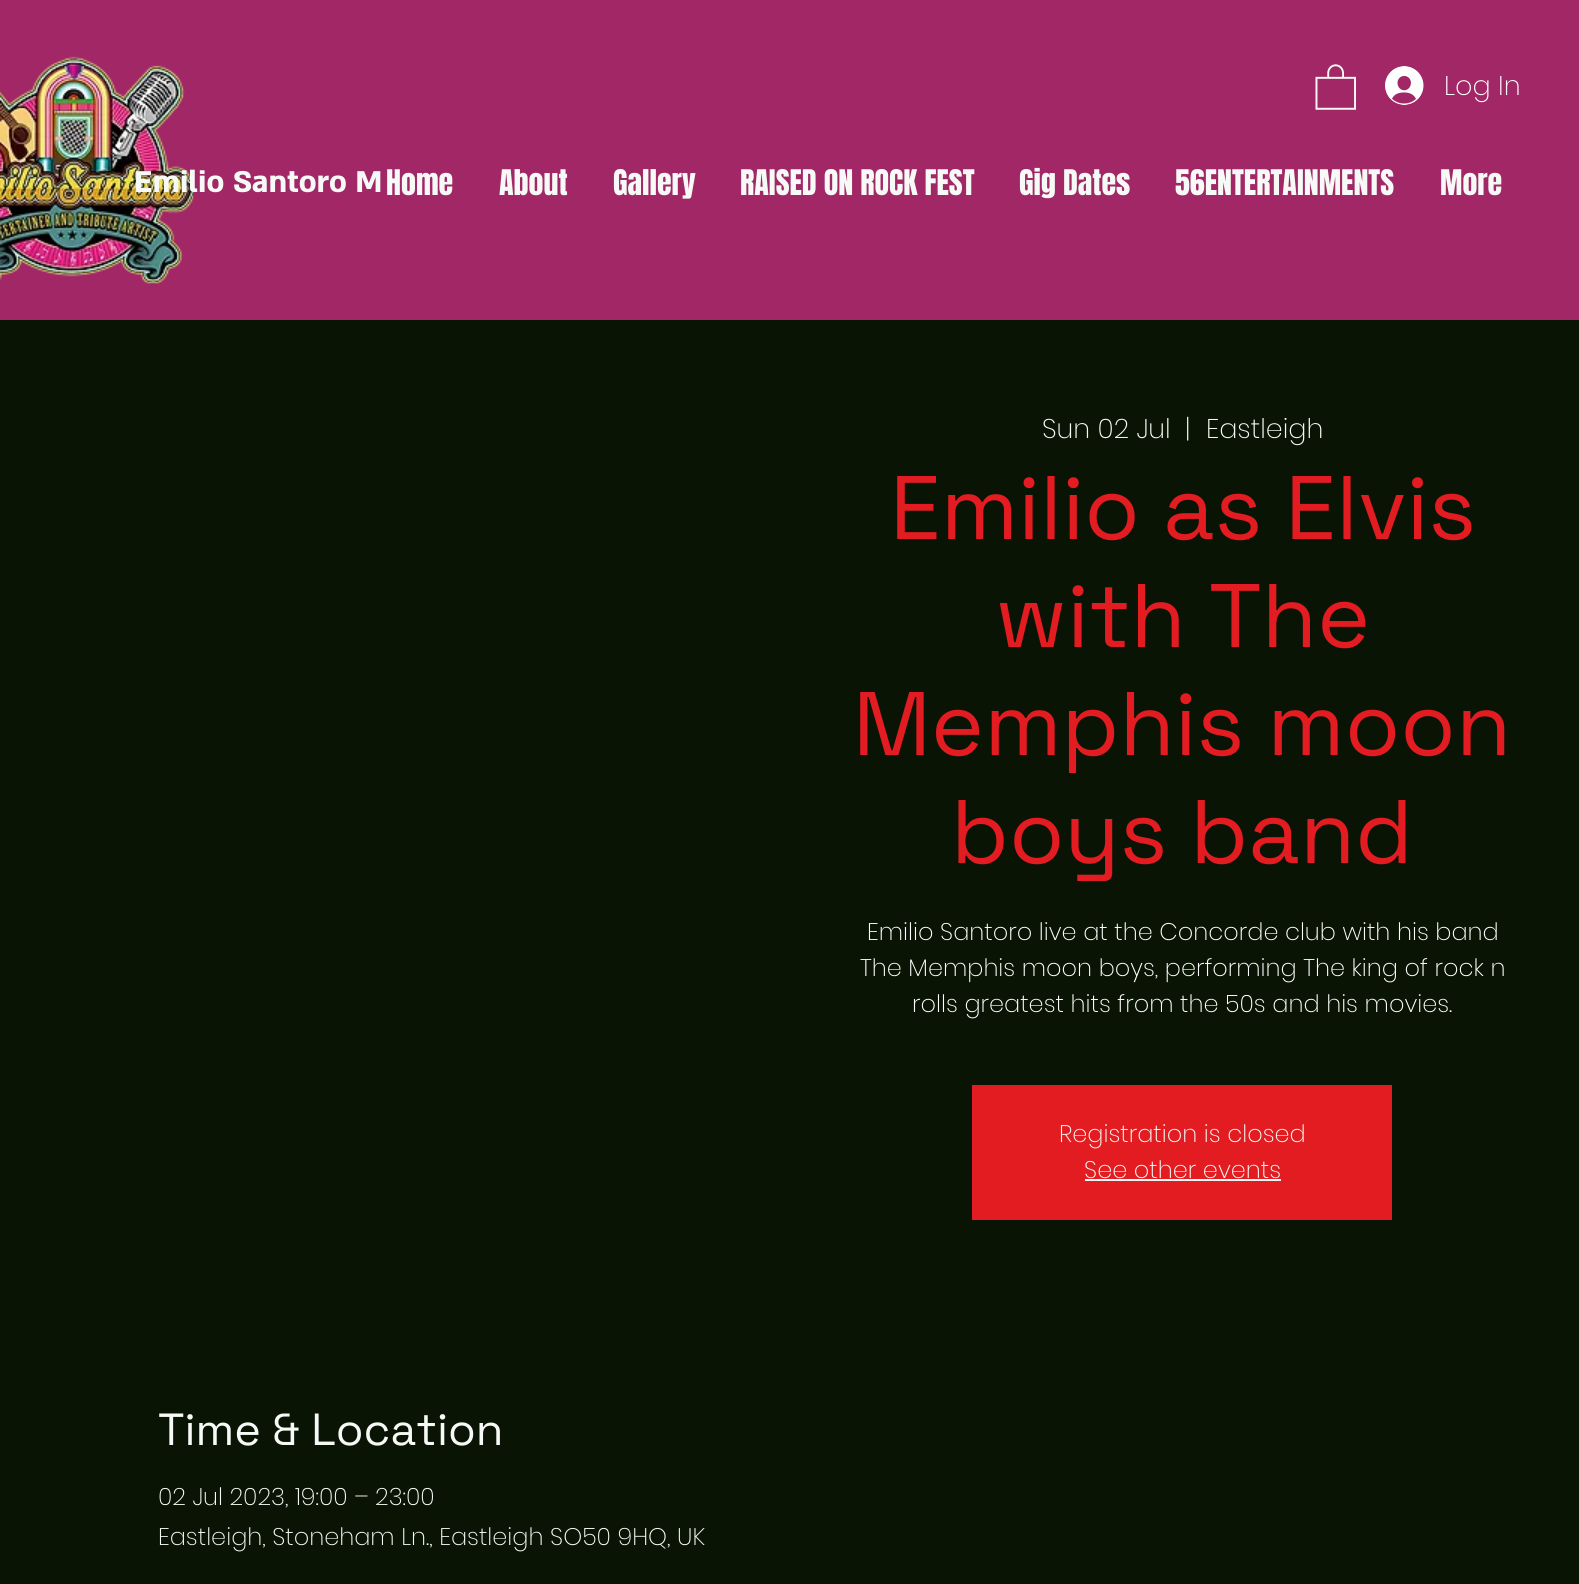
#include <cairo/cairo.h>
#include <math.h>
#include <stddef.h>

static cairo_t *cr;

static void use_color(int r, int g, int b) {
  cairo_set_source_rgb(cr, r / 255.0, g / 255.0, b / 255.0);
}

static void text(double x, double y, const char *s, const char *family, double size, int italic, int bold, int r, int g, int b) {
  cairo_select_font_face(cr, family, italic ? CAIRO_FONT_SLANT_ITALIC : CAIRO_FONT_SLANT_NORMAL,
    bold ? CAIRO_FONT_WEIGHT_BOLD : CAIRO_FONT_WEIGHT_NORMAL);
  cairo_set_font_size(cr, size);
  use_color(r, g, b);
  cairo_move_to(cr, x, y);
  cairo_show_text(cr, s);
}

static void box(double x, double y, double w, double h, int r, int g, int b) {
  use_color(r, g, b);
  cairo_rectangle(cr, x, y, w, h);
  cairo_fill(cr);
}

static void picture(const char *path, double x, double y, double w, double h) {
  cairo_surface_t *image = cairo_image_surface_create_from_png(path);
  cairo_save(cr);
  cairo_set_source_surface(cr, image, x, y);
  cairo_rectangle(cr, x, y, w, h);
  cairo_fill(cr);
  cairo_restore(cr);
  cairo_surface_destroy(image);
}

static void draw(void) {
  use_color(9, 20, 5);
  cairo_paint(cr);
  box(0, 0, 1579, 320, 161, 39, 103);
  picture("img_01.png", 0, 56, 194, 228);
  picture("img_02.png", 1315, 64, 41, 46);
  picture("img_03.png", 1385, 66, 39, 39);
  box(972, 1085, 420, 135, 226, 28, 33);
  box(1085, 1179, 196, 2, 246, 249, 245);
  text(134, 192, "Emilio Santoro M", "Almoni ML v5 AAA", 34.5, 0, 1, 246, 249, 245);
  text(1444, 95, "Log In", "Poppins ExtraLight", 27, 0, 0, 255, 255, 255);
  text(386, 195, "Home", "Anton", 30, 0, 0, 246, 249, 245);
  text(499, 195, "About", "Anton", 30, 0, 0, 246, 249, 245);
  text(613, 195, "Gallery", "Anton", 30, 0, 0, 246, 249, 245);
  text(740, 195, "RAISED ON ROCK FEST", "Anton", 30, 0, 0, 246, 249, 245);
  text(1019, 195, "Gig Dates", "Anton", 30, 0, 0, 246, 249, 245);
  text(1175, 195, "56ENTERTAINMENTS", "Anton", 30, 0, 0, 246, 249, 245);
  text(1440, 195, "More", "Anton", 30, 0, 0, 246, 249, 245);
  text(1042, 438, "Sun 02 Jul", "Poppins ExtraLight", 27, 0, 0, 246, 249, 245);
  text(1185, 438, "|", "Poppins ExtraLight", 27, 0, 0, 246, 249, 245);
  text(1206, 438, "Eastleigh", "Poppins ExtraLight", 27, 0, 0, 246, 249, 245);
  text(890, 539, "Emilio as Elvis", "Space Grotesk", 90, 0, 0, 226, 28, 33);
  text(995, 647, "with The", "Space Grotesk", 90, 0, 0, 226, 28, 33);
  text(853, 755, "Memphis moon", "Space Grotesk", 90, 0, 0, 226, 28, 33);
  text(951, 863, "boys band", "Space Grotesk", 90, 0, 0, 226, 28, 33);
  text(867, 940, "Emilio Santoro live at the Concorde club with his band", "Poppins ExtraLight", 24, 0, 0, 255, 255, 255);
  text(860, 976, "The Memphis moon boys, performing The king of rock n", "Poppins ExtraLight", 24, 0, 0, 255, 255, 255);
  text(912, 1012, "rolls greatest hits from the 50s and his movies.", "Poppins ExtraLight", 24, 0, 0, 255, 255, 255);
  text(1059, 1142, "Registration is closed", "Poppins ExtraLight", 24, 0, 0, 246, 249, 245);
  text(1084, 1178, "See other events", "Poppins ExtraLight", 24, 0, 0, 246, 249, 245);
  text(158, 1445, "Time & Location", "Space Grotesk", 45, 0, 0, 246, 249, 245);
  text(158, 1505, "02 Jul 2023, 19:00 – 23:00", "Poppins ExtraLight", 24, 0, 0, 246, 249, 245);
  text(158, 1545, "Eastleigh, Stoneham Ln., Eastleigh SO50 9HQ, UK", "Poppins ExtraLight", 24, 0, 0, 246, 249, 245);
}

int main(void) {
  cairo_surface_t *surface = cairo_image_surface_create(CAIRO_FORMAT_RGB24, 1579, 1584);
  cr = cairo_create(surface);
  cairo_font_options_t *options = cairo_font_options_create();
  cairo_font_options_set_hint_metrics(options, CAIRO_HINT_METRICS_OFF);
  cairo_font_options_set_hint_style(options, CAIRO_HINT_STYLE_NONE);
  cairo_set_font_options(cr, options);
  cairo_set_miter_limit(cr, 4);
  draw();
  cairo_surface_write_to_png(surface, "out.png");
  cairo_font_options_destroy(options);
  cairo_destroy(cr);
  cairo_surface_destroy(surface);
  return 0;
}
